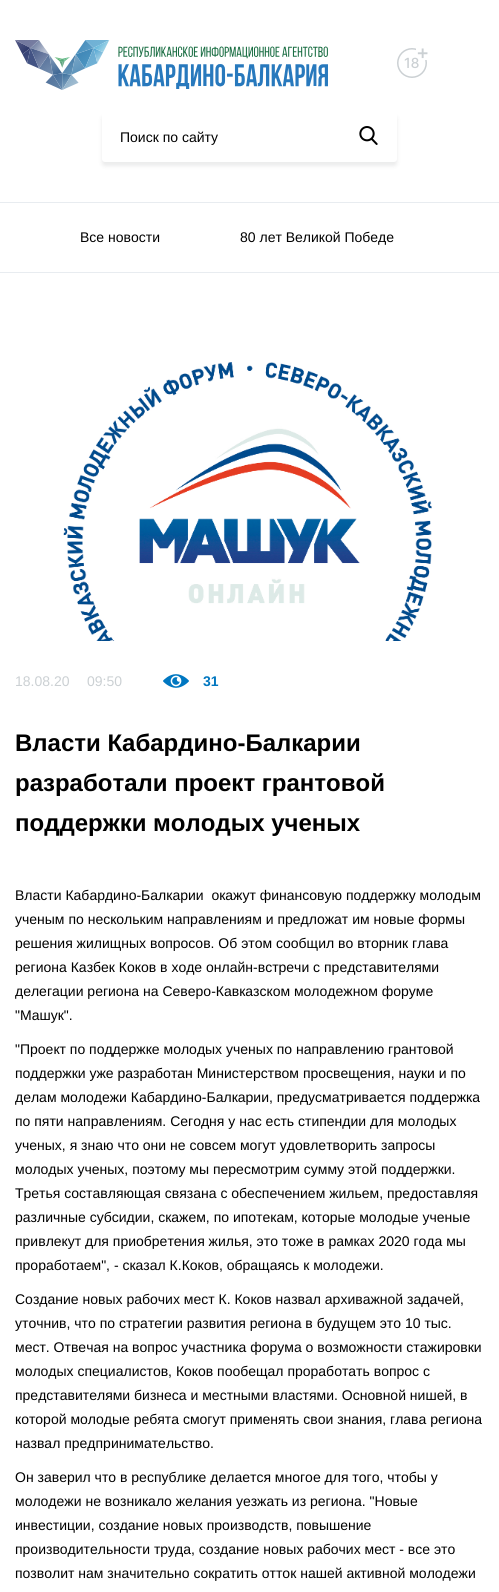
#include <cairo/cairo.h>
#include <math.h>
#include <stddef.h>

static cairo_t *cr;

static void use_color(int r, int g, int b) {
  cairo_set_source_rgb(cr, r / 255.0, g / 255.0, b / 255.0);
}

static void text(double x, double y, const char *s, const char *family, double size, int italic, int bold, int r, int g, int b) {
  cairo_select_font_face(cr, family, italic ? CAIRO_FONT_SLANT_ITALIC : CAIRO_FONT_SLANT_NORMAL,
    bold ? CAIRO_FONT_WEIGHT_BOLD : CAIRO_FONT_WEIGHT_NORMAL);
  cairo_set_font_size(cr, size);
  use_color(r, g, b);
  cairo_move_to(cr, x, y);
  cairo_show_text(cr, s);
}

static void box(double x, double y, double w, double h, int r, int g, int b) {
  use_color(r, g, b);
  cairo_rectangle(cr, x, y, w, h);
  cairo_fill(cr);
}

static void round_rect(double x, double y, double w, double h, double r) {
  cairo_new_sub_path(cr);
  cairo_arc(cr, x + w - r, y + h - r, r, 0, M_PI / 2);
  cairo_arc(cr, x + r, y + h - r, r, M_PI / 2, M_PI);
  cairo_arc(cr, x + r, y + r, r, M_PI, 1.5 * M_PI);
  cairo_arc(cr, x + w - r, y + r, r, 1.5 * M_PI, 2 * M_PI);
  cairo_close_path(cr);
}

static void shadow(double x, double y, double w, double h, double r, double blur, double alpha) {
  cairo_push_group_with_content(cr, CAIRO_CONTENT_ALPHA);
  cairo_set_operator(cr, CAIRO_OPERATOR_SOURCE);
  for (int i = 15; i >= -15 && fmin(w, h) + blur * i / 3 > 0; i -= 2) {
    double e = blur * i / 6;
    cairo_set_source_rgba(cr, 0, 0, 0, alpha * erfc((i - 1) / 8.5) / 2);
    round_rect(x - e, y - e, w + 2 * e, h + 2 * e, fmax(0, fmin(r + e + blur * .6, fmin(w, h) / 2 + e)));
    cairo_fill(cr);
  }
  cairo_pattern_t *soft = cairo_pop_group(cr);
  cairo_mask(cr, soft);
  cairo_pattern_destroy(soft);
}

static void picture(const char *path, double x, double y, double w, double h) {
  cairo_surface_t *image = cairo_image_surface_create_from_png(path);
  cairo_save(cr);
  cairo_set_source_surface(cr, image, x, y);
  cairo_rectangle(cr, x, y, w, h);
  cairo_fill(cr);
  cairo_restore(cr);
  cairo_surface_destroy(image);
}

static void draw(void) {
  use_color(255, 255, 255);
  cairo_paint(cr);
  picture("img_01.png", 15, 40, 313, 50);
  picture("img_02.png", 397, 48, 31, 30);
  use_color(54, 59, 61);
  shadow(102, 116, 295, 50, 3, 2, 0.1);
  use_color(255, 255, 255);
  round_rect(102, 112, 295, 50, 3);
  cairo_fill(cr);
  picture("img_03.png", 359, 126, 19, 19);
  box(0, 272, 499, 1, 232, 236, 240);
  box(0, 202, 499, 1, 232, 236, 240);
  picture("img_04.png", 50, 354, 382, 287);
  picture("img_05.png", 163, 674, 26, 14);
  text(120, 142, "Поиск по сайту", "Liberation Sans", 14, 0, 0, 0, 0, 0);
  text(80, 242, "Все новости", "Liberation Sans", 14, 0, 0, 0, 0, 0);
  text(240, 242, "80 лет Великой Победе", "Liberation Sans", 14, 0, 0, 0, 0, 0);
  text(15, 686, "18.08.20", "Liberation Sans", 14, 0, 0, 203, 208, 211);
  text(87, 686, "09:50", "Liberation Sans", 14, 0, 0, 203, 208, 211);
  text(203, 686, "31", "Liberation Sans", 14, 0, 1, 0, 118, 191);
  text(15, 751, "Власти Кабардино-Балкарии", "Liberation Sans", 24, 0, 1, 0, 0, 0);
  text(15, 791, "разработали проект грантовой", "Liberation Sans", 24, 0, 1, 0, 0, 0);
  text(15, 831, "поддержки молодых ученых", "Liberation Sans", 24, 0, 1, 0, 0, 0);
  text(15, 900, "Власти Кабардино-Балкарии  окажут финансовую поддержку молодым", "Liberation Sans", 14, 0, 0, 0, 0, 0);
  text(15, 924, "ученым по нескольким направлениям и предложат им новые формы", "Liberation Sans", 14, 0, 0, 0, 0, 0);
  text(15, 948, "решения жилищных вопросов. Об этом сообщил во вторник глава", "Liberation Sans", 14, 0, 0, 0, 0, 0);
  text(15, 972, "региона Казбек Коков в ходе онлайн-встречи с представителями", "Liberation Sans", 14, 0, 0, 0, 0, 0);
  text(15, 996, "делегации региона на Северо-Кавказском молодежном форуме", "Liberation Sans", 14, 0, 0, 0, 0, 0);
  text(15, 1020, "\"Машук\".", "Liberation Sans", 14, 0, 0, 0, 0, 0);
  text(15, 1054, "\"Проект по поддержке молодых ученых по направлению грантовой", "Liberation Sans", 14, 0, 0, 0, 0, 0);
  text(15, 1078, "поддержки уже разработан Министерством просвещения, науки и по", "Liberation Sans", 14, 0, 0, 0, 0, 0);
  text(15, 1102, "делам молодежи Кабардино-Балкарии, предусматривается поддержка", "Liberation Sans", 14, 0, 0, 0, 0, 0);
  text(15, 1126, "по пяти направлениям. Сегодня у нас есть стипендии для молодых", "Liberation Sans", 14, 0, 0, 0, 0, 0);
  text(15, 1150, "ученых, я знаю что они не совсем могут удовлетворить запросы", "Liberation Sans", 14, 0, 0, 0, 0, 0);
  text(15, 1174, "молодых ученых, поэтому мы пересмотрим сумму этой поддержки.", "Liberation Sans", 14, 0, 0, 0, 0, 0);
  text(15, 1198, "Третья составляющая связана с обеспечением жильем, предоставляя", "Liberation Sans", 14, 0, 0, 0, 0, 0);
  text(15, 1222, "различные субсидии, скажем, по ипотекам, которые молодые ученые", "Liberation Sans", 14, 0, 0, 0, 0, 0);
  text(15, 1246, "привлекут для приобретения жилья, это тоже в рамках 2020 года мы", "Liberation Sans", 14, 0, 0, 0, 0, 0);
  text(15, 1270, "проработаем\", - сказал К.Коков, обращаясь к молодежи.", "Liberation Sans", 14, 0, 0, 0, 0, 0);
  text(15, 1304, "Создание новых рабочих мест К. Коков назвал архиважной задачей,", "Liberation Sans", 14, 0, 0, 0, 0, 0);
  text(15, 1328, "уточнив, что по стратегии развития региона в будущем это 10 тыс.", "Liberation Sans", 14, 0, 0, 0, 0, 0);
  text(15, 1352, "мест. Отвечая на вопрос участника форума о возможности стажировки", "Liberation Sans", 14, 0, 0, 0, 0, 0);
  text(15, 1376, "молодых специалистов, Коков пообещал проработать вопрос с", "Liberation Sans", 14, 0, 0, 0, 0, 0);
  text(15, 1400, "представителями бизнеса и местными властями. Основной нишей, в", "Liberation Sans", 14, 0, 0, 0, 0, 0);
  text(15, 1424, "которой молодые ребята смогут применять свои знания, глава региона", "Liberation Sans", 14, 0, 0, 0, 0, 0);
  text(15, 1448, "назвал предпринимательство.", "Liberation Sans", 14, 0, 0, 0, 0, 0);
  text(15, 1482, "Он заверил что в республике делается многое для того, чтобы у", "Liberation Sans", 14, 0, 0, 0, 0, 0);
  text(15, 1506, "молодежи не возникало желания уезжать из региона. \"Новые", "Liberation Sans", 14, 0, 0, 0, 0, 0);
  text(15, 1530, "инвестиции, создание новых производств, повышение", "Liberation Sans", 14, 0, 0, 0, 0, 0);
  text(15, 1554, "производительности труда, создание новых рабочих мест - все это", "Liberation Sans", 14, 0, 0, 0, 0, 0);
  text(15, 1578, "позволит нам значительно сократить отток нашей активной молодежи", "Liberation Sans", 14, 0, 0, 0, 0, 0);
}

int main(void) {
  cairo_surface_t *surface = cairo_image_surface_create(CAIRO_FORMAT_RGB24, 499, 1592);
  cr = cairo_create(surface);
  cairo_font_options_t *options = cairo_font_options_create();
  cairo_font_options_set_hint_metrics(options, CAIRO_HINT_METRICS_OFF);
  cairo_font_options_set_hint_style(options, CAIRO_HINT_STYLE_NONE);
  cairo_set_font_options(cr, options);
  cairo_set_miter_limit(cr, 4);
  draw();
  cairo_surface_write_to_png(surface, "out.png");
  cairo_font_options_destroy(options);
  cairo_destroy(cr);
  cairo_surface_destroy(surface);
  return 0;
}
